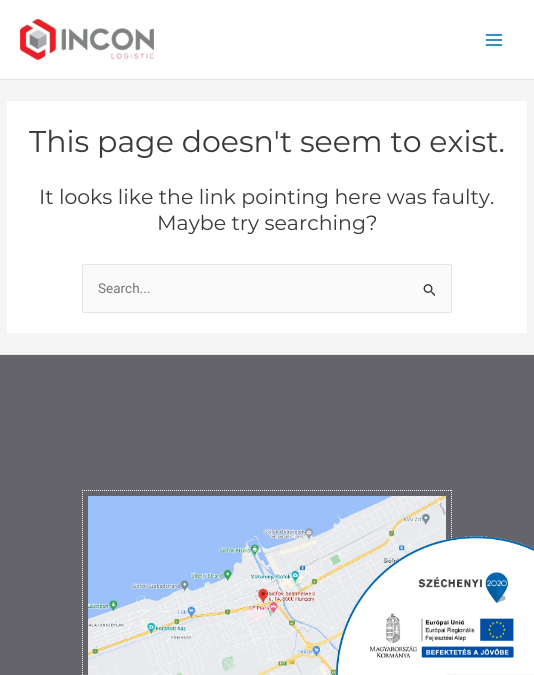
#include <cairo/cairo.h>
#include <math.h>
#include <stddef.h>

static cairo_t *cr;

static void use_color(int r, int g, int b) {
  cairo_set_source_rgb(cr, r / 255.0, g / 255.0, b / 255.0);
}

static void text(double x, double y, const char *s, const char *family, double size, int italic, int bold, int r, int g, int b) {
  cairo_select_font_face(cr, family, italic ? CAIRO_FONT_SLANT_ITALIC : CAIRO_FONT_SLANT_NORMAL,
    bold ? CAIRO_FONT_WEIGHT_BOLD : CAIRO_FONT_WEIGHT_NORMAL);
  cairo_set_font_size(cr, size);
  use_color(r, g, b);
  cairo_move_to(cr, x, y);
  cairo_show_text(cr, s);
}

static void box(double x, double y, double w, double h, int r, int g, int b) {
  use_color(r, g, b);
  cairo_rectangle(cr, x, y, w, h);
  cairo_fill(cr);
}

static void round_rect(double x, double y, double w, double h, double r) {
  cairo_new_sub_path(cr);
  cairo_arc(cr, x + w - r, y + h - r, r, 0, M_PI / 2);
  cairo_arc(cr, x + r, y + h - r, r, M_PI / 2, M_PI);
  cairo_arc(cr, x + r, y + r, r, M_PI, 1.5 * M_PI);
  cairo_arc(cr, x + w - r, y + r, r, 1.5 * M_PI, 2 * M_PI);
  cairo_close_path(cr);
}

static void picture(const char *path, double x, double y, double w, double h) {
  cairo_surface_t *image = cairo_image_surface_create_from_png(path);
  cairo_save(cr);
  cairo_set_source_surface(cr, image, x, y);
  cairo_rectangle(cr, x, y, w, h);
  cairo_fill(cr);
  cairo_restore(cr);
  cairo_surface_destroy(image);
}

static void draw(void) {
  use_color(245, 245, 245);
  cairo_paint(cr);
  box(0, 0, 534, 79, 255, 255, 255);
  box(0, 79, 534, 1, 229, 229, 229);
  picture("img_01.png", 20, 19, 134, 41);
  picture("img_02.png", 485, 34, 18, 12);
  box(7, 101, 520, 232, 255, 255, 255);
  use_color(250, 250, 250);
  round_rect(82.5, 264.5, 369, 48, 1.5);
  cairo_fill_preserve(cr);
  use_color(229, 229, 229);
  cairo_set_line_width(cr, 1);
  cairo_stroke(cr);
  picture("img_03.png", 423, 284, 12, 12);
  box(0, 355, 534, 320, 101, 100, 106);
  box(0, 354, 534, 1, 229, 229, 229);
  cairo_new_path(cr);
  cairo_move_to(cr, 82, 490.5);
  cairo_line_to(cr, 452, 490.5);
  use_color(255, 255, 255);
  cairo_set_dash(cr, (double[]){1, 1}, 2, 0);
  cairo_stroke(cr);
  cairo_new_path(cr);
  cairo_move_to(cr, 82.5, 490);
  cairo_line_to(cr, 82.5, 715);
  cairo_stroke(cr);
  picture("img_04.png", 88, 496, 358, 179);
  cairo_new_path(cr);
  cairo_move_to(cr, 451.5, 490);
  cairo_line_to(cr, 451.5, 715);
  cairo_stroke(cr);
  picture("img_05.png", 336, 536, 198, 139);
  text(29, 152, "This page doesn't seem to exist.", "Montserrat", 30, 0, 0, 58, 58, 58);
  text(39, 204, "It looks like the link pointing here was faulty.", "Montserrat", 20.5, 0, 0, 58, 58, 58);
  text(157, 230, "Maybe try searching?", "Montserrat", 20.5, 0, 0, 58, 58, 58);
  text(98, 293, "Search...", "Roboto", 13.5, 0, 0, 117, 117, 117);
}

int main(void) {
  cairo_surface_t *surface = cairo_image_surface_create(CAIRO_FORMAT_RGB24, 534, 675);
  cr = cairo_create(surface);
  cairo_font_options_t *options = cairo_font_options_create();
  cairo_font_options_set_hint_metrics(options, CAIRO_HINT_METRICS_OFF);
  cairo_font_options_set_hint_style(options, CAIRO_HINT_STYLE_NONE);
  cairo_set_font_options(cr, options);
  cairo_set_miter_limit(cr, 4);
  draw();
  cairo_surface_write_to_png(surface, "out.png");
  cairo_font_options_destroy(options);
  cairo_destroy(cr);
  cairo_surface_destroy(surface);
  return 0;
}
